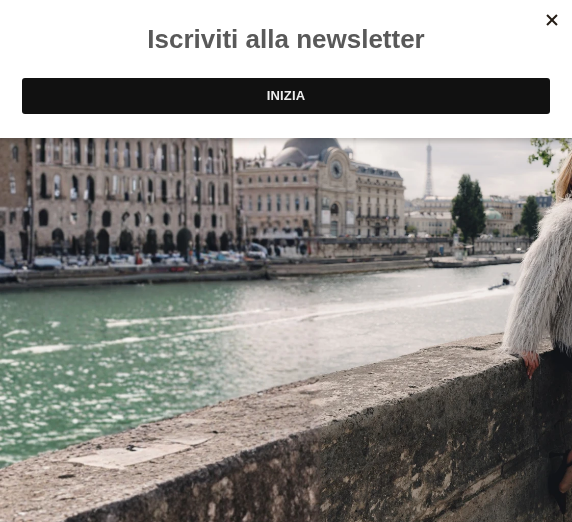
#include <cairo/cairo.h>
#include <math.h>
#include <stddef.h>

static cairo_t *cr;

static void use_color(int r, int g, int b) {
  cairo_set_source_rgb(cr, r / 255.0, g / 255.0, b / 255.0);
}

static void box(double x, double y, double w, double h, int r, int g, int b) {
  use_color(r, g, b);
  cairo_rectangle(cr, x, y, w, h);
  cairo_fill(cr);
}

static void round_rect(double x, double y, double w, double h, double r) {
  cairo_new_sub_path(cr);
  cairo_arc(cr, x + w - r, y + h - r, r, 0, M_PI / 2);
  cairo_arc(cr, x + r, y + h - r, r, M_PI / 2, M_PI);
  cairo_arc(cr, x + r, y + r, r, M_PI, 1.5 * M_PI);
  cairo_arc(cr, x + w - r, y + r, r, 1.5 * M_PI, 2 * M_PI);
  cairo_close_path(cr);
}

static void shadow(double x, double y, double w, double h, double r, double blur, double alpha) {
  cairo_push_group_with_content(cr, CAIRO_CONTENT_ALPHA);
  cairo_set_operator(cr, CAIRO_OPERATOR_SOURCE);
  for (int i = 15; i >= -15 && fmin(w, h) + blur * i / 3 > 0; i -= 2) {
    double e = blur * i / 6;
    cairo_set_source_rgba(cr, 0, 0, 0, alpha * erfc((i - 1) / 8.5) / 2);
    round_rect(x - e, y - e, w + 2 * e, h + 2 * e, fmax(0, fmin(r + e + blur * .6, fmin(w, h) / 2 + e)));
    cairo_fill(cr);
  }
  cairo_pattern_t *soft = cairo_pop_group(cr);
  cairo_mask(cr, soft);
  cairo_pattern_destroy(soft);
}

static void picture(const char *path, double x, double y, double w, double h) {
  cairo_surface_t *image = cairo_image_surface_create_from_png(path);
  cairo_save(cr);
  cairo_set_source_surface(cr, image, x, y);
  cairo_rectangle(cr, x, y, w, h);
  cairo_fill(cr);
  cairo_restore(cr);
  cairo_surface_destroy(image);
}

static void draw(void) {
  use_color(255, 255, 255);
  cairo_paint(cr);
  picture("img_02.png", 0, 138, 572, 384);
  use_color(0, 0, 0);
  shadow(0, 3, 572, 138, 0, 3, 0.2);
  box(0, 0, 572, 138, 255, 255, 255);
  picture("img_01.png", 22, 14, 536, 100);
}

int main(void) {
  cairo_surface_t *surface = cairo_image_surface_create(CAIRO_FORMAT_RGB24, 572, 522);
  cr = cairo_create(surface);
  cairo_font_options_t *options = cairo_font_options_create();
  cairo_font_options_set_hint_metrics(options, CAIRO_HINT_METRICS_OFF);
  cairo_font_options_set_hint_style(options, CAIRO_HINT_STYLE_NONE);
  cairo_set_font_options(cr, options);
  cairo_set_miter_limit(cr, 4);
  draw();
  cairo_surface_write_to_png(surface, "out.png");
  cairo_font_options_destroy(options);
  cairo_destroy(cr);
  cairo_surface_destroy(surface);
  return 0;
}
